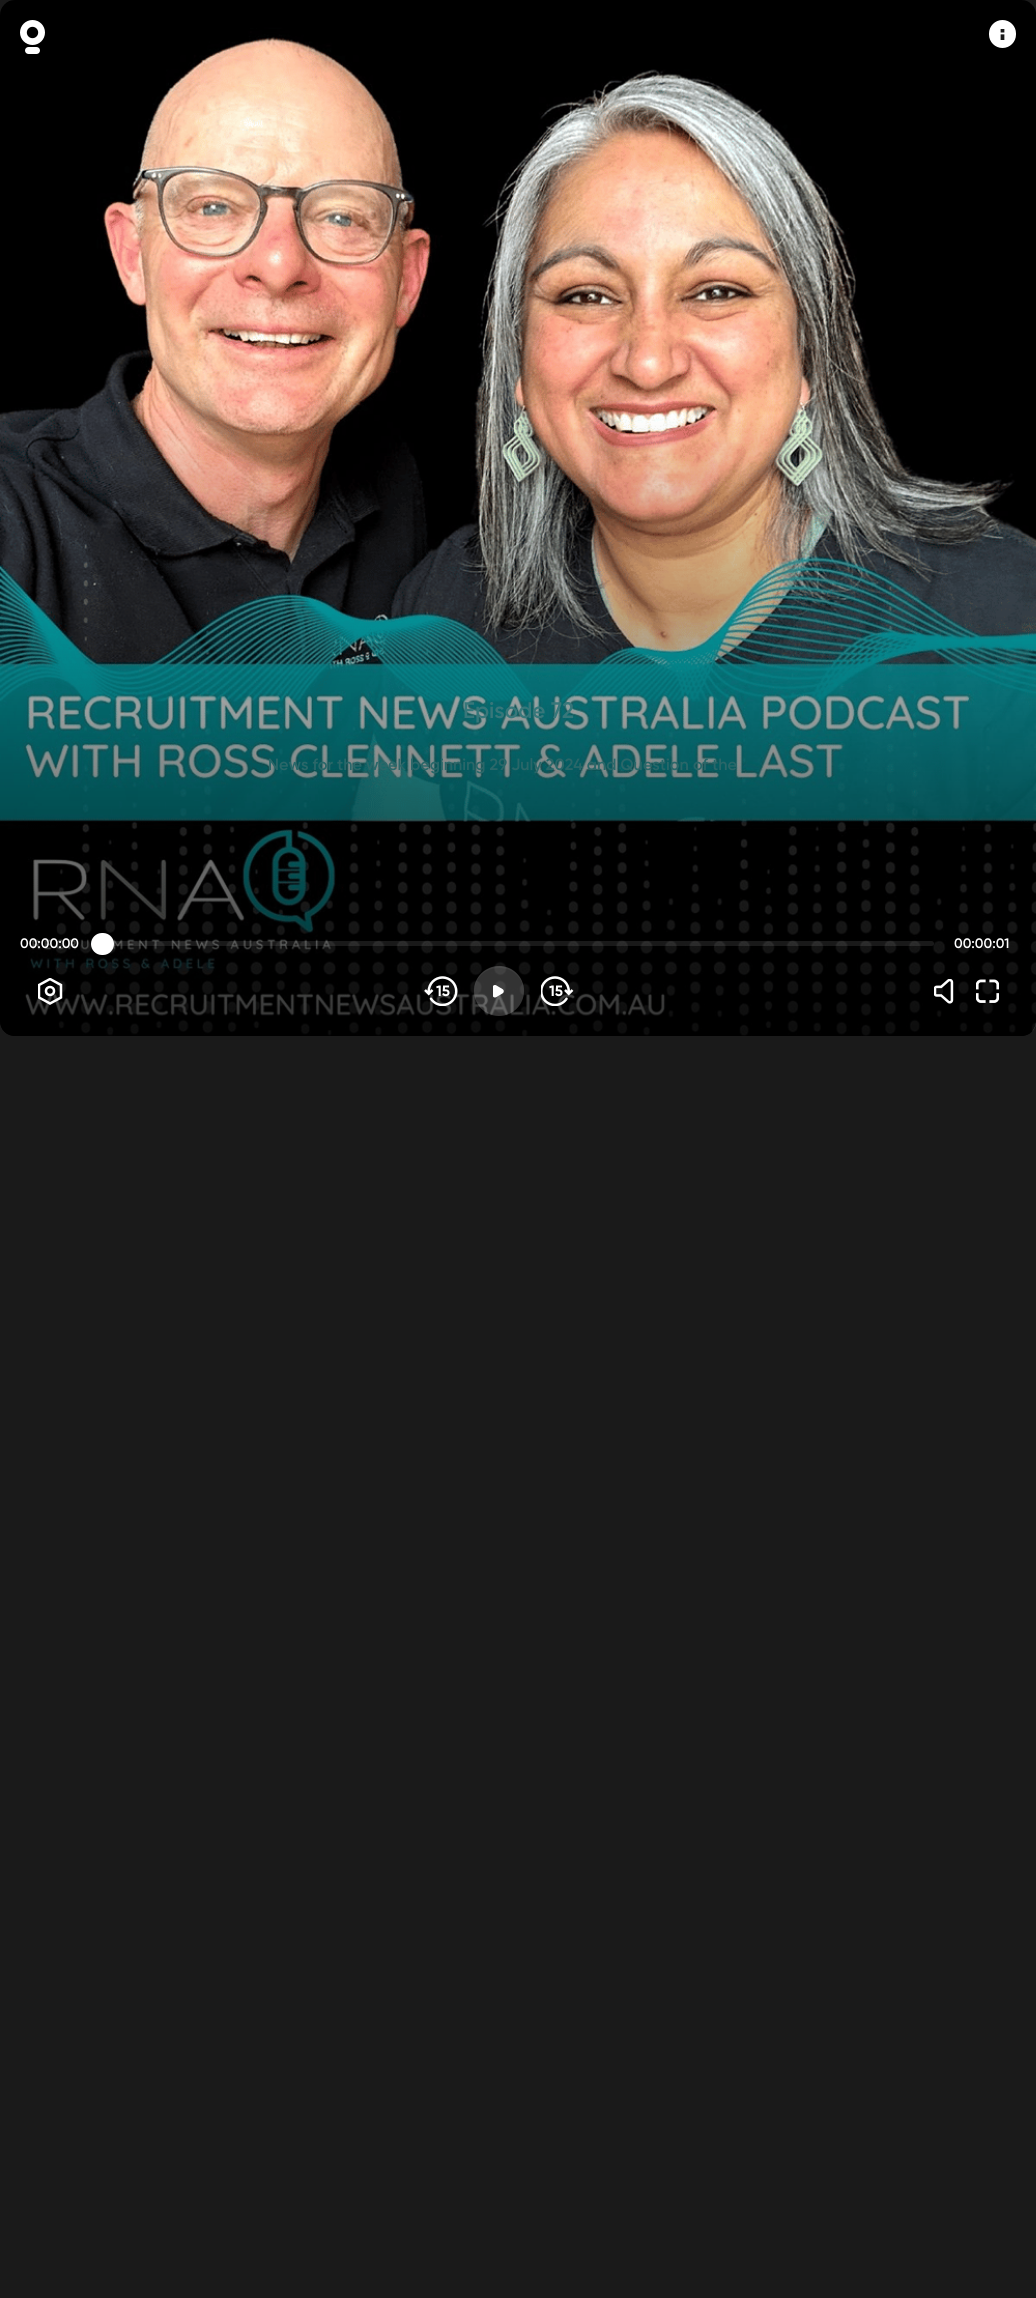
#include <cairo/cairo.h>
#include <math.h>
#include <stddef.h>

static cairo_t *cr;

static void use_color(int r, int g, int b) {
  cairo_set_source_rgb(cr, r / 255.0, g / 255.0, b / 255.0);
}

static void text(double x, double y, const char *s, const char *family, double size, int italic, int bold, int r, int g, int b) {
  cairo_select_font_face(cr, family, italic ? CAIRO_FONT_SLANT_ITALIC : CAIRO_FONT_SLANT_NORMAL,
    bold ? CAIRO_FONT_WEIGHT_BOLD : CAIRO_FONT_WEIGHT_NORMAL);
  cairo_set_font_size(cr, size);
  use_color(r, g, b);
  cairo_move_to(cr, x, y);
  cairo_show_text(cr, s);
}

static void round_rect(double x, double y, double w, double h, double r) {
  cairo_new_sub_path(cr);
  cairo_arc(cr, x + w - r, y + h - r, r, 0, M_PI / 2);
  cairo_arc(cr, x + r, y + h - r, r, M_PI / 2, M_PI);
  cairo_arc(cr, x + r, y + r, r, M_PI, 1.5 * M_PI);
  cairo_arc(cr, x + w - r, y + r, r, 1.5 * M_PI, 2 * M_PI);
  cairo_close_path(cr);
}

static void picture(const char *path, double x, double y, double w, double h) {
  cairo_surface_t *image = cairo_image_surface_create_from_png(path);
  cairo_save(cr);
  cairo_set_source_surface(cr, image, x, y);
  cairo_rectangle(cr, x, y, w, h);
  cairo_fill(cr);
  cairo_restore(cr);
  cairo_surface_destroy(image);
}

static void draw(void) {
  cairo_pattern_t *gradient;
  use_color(26, 26, 26);
  cairo_paint(cr);
  picture("img_01.png", 0, 0, 1036, 1036);
  gradient = cairo_pattern_create_linear(518, 0, 518, 1036);
  cairo_pattern_add_color_stop_rgba(gradient, 0, 0, 0, 0, 0);
  cairo_pattern_add_color_stop_rgba(gradient, 0.4, 0, 0, 0, 0);
  cairo_pattern_add_color_stop_rgba(gradient, 1, 0, 0, 0, 0.8);
  cairo_set_source(cr, gradient);
  cairo_pattern_destroy(gradient);
  round_rect(0, 0, 1036, 1036, 15);
  cairo_fill(cr);
  picture("img_02.png", 20, 20, 25, 34);
  use_color(255, 255, 255);
  round_rect(989, 20, 27, 28, 13.5);
  cairo_fill(cr);
  cairo_set_source_rgba(cr, 1, 1, 1, 0.05);
  cairo_new_path(cr);
  cairo_move_to(cr, 1002, 21);
  cairo_curve_to(cr, 1010, 21, 1014.5, 26, 1016, 31.5);
  cairo_curve_to(cr, 1014, 18.5, 996.5, 16, 990.5, 27.5);
  cairo_curve_to(cr, 992.5, 23.5, 996.5, 21, 1002, 21);
  cairo_close_path(cr);
  cairo_fill(cr);
  picture("img_03.png", 1000, 29, 5, 11);
  cairo_set_source_rgba(cr, 1, 1, 1, 0.1);
  round_rect(103, 941, 831, 5, 2.5);
  cairo_fill(cr);
  use_color(255, 255, 255);
  round_rect(91, 933, 23, 22, 11);
  cairo_fill(cr);
  cairo_save(cr);
  cairo_rectangle(cr, 38, 978, 25, 27);
  cairo_clip(cr);
  cairo_new_path(cr);
  cairo_move_to(cr, 39, 985);
  cairo_line_to(cr, 50, 979);
  cairo_line_to(cr, 61, 985);
  cairo_line_to(cr, 61, 997.5);
  cairo_line_to(cr, 50, 1003.5);
  cairo_line_to(cr, 39, 997.5);
  cairo_close_path(cr);
  cairo_set_line_width(cr, 2.5);
  cairo_stroke(cr);
  cairo_restore(cr);
  cairo_arc(cr, 50, 991, 4, 0, 2 * M_PI);
  cairo_set_line_width(cr, 2.5);
  cairo_stroke(cr);
  picture("img_04.png", 424, 976, 34, 30);
  cairo_set_source_rgba(cr, 0, 0, 0, 0.2);
  cairo_new_path(cr);
  cairo_move_to(cr, 474, 996);
  cairo_curve_to(cr, 475, 1002, 478, 1007, 482, 1012);
  cairo_curve_to(cr, 500, 1028, 528, 1012, 524, 989);
  cairo_curve_to(cr, 527, 1020, 480, 1027, 474, 996);
  cairo_close_path(cr);
  cairo_fill(cr);
  cairo_set_source_rgba(cr, 1, 1, 1, 0.2);
  cairo_arc(cr, 499, 991, 25, 0, 2 * M_PI);
  cairo_fill(cr);
  cairo_set_source_rgba(cr, 1, 1, 1, 0.05);
  cairo_new_path(cr);
  cairo_move_to(cr, 499, 968);
  cairo_curve_to(cr, 516, 968, 525, 982, 524, 995);
  cairo_curve_to(cr, 525, 989, 523, 982, 520, 977);
  cairo_curve_to(cr, 505, 955, 470, 969, 474, 995);
  cairo_curve_to(cr, 473, 982, 482, 968, 499, 968);
  cairo_close_path(cr);
  cairo_fill(cr);
  picture("img_05.png", 493, 985, 11, 13);
  picture("img_06.png", 541, 976, 33, 30);
  picture("img_07.png", 934, 979, 20, 25);
  picture("img_08.png", 976, 979, 23, 24);
  text(463, 718, "Episode 72", "Gilroy SemiBold", 22.5, 0, 0, 55, 119, 122);
  text(268, 770, "News for the week beginning 29 July 2024 and Question of the", "Gilroy SemiBold", 16.25, 0, 0, 42, 103, 105);
  text(20, 948, "00:00:00", "Gilroy SemiBold", 13.75, 0, 0, 255, 255, 255);
  text(954, 948, "00:00:01", "Gilroy SemiBold", 13.75, 0, 0, 255, 255, 255);
  text(436, 996, "15", "Gilroy", 15, 0, 1, 255, 255, 255);
  text(549, 996, "15", "Gilroy", 15, 0, 1, 255, 255, 255);
}

int main(void) {
  cairo_surface_t *surface = cairo_image_surface_create(CAIRO_FORMAT_RGB24, 1036, 2298);
  cr = cairo_create(surface);
  cairo_font_options_t *options = cairo_font_options_create();
  cairo_font_options_set_hint_metrics(options, CAIRO_HINT_METRICS_OFF);
  cairo_font_options_set_hint_style(options, CAIRO_HINT_STYLE_NONE);
  cairo_set_font_options(cr, options);
  cairo_set_miter_limit(cr, 4);
  draw();
  cairo_surface_write_to_png(surface, "out.png");
  cairo_font_options_destroy(options);
  cairo_destroy(cr);
  cairo_surface_destroy(surface);
  return 0;
}
